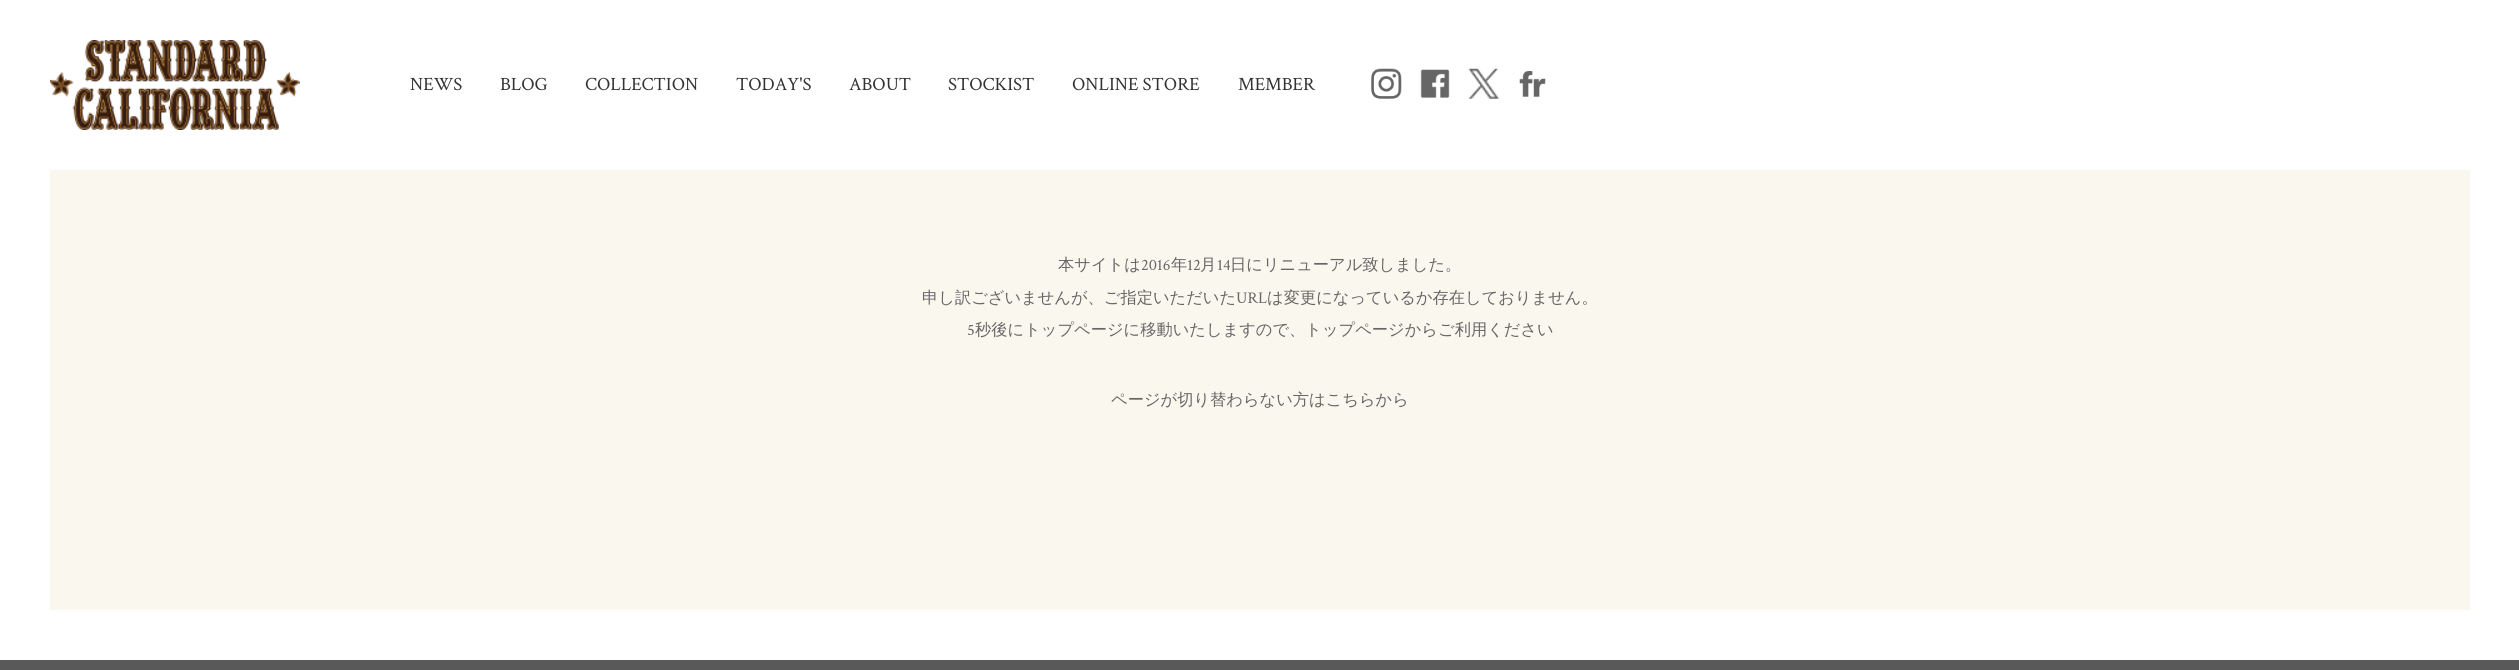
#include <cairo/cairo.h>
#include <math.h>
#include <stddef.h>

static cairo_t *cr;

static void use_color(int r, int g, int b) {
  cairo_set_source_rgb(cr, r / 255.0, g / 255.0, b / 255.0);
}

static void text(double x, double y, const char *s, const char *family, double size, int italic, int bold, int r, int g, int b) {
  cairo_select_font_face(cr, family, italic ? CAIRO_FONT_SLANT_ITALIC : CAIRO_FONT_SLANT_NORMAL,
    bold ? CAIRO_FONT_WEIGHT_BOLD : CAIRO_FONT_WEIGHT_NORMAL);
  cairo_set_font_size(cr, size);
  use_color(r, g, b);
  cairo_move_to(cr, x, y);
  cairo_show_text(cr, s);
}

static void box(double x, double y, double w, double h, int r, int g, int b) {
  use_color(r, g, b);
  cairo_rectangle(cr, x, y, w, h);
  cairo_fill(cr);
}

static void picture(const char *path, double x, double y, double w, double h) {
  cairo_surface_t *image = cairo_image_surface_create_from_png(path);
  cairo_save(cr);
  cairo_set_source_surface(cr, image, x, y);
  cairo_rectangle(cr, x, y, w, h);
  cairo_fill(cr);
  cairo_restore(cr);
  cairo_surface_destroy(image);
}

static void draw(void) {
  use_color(255, 255, 255);
  cairo_paint(cr);
  picture("img_01.png", 50, 40, 250, 90);
  picture("img_02.png", 1371, 68, 31, 31);
  picture("img_03.png", 1420, 69, 30, 29);
  picture("img_04.png", 1468, 68, 31, 31);
  picture("img_05.png", 1519, 71, 27, 26);
  box(50, 170, 2420, 440, 250, 247, 238);
  box(0, 660, 2519, 10, 89, 89, 89);
  text(410, 90, "NEWS", "Crimson Text", 18.75, 0, 0, 51, 51, 51);
  text(500, 90, "BLOG", "Crimson Text", 18.75, 0, 0, 51, 51, 51);
  text(585, 90, "COLLECTION", "Crimson Text", 18.75, 0, 0, 51, 51, 51);
  text(736, 90, "TODAY'S", "Crimson Text", 18.75, 0, 0, 51, 51, 51);
  text(849, 90, "ABOUT", "Crimson Text", 18.75, 0, 0, 51, 51, 51);
  text(948, 90, "STOCKIST", "Crimson Text", 18.75, 0, 0, 51, 51, 51);
  text(1072, 90, "ONLINE STORE", "Crimson Text", 18.75, 0, 0, 51, 51, 51);
  text(1238, 90, "MEMBER", "Crimson Text", 18.75, 0, 0, 51, 51, 51);
  text(1058, 270, "本サイトは", "WenQuanYi Zen Hei Medium", 16.25, 0, 0, 102, 102, 102);
  text(1141, 270, "2016", "Crimson Text", 16.25, 0, 0, 102, 102, 102);
  text(1171, 270, "年", "WenQuanYi Zen Hei Medium", 16.25, 0, 0, 102, 102, 102);
  text(1187, 270, "12", "Crimson Text", 16.25, 0, 0, 102, 102, 102);
  text(1200, 270, "月", "WenQuanYi Zen Hei Medium", 16.25, 0, 0, 102, 102, 102);
  text(1217, 270, "14", "Crimson Text", 16.25, 0, 0, 102, 102, 102);
  text(1230, 270, "日にリニューアル致しました。", "WenQuanYi Zen Hei Medium", 16.25, 0, 0, 102, 102, 102);
  text(922, 303, "申し訳ございませんが、ご指定いただいた", "WenQuanYi Zen Hei Medium", 16.25, 0, 0, 102, 102, 102);
  text(1236, 303, "URL", "Crimson Text", 16.25, 0, 0, 102, 102, 102);
  text(1267, 303, "は変更になっているか存在しておりません。", "WenQuanYi Zen Hei Medium", 16.25, 0, 0, 102, 102, 102);
  text(967, 335, "5", "Crimson Text", 16.25, 0, 0, 102, 102, 102);
  text(975, 335, "秒後にトップページに移動いたしますので、トップページからご利用ください", "WenQuanYi Zen Hei Medium", 16.25, 0, 0, 102, 102, 102);
  text(1111, 405, "ページが切り替わらない方はこちらから", "WenQuanYi Zen Hei Medium", 16.25, 0, 0, 102, 102, 102);
}

int main(void) {
  cairo_surface_t *surface = cairo_image_surface_create(CAIRO_FORMAT_RGB24, 2519, 670);
  cr = cairo_create(surface);
  cairo_font_options_t *options = cairo_font_options_create();
  cairo_font_options_set_hint_metrics(options, CAIRO_HINT_METRICS_OFF);
  cairo_font_options_set_hint_style(options, CAIRO_HINT_STYLE_NONE);
  cairo_set_font_options(cr, options);
  cairo_set_miter_limit(cr, 4);
  draw();
  cairo_surface_write_to_png(surface, "out.png");
  cairo_font_options_destroy(options);
  cairo_destroy(cr);
  cairo_surface_destroy(surface);
  return 0;
}
